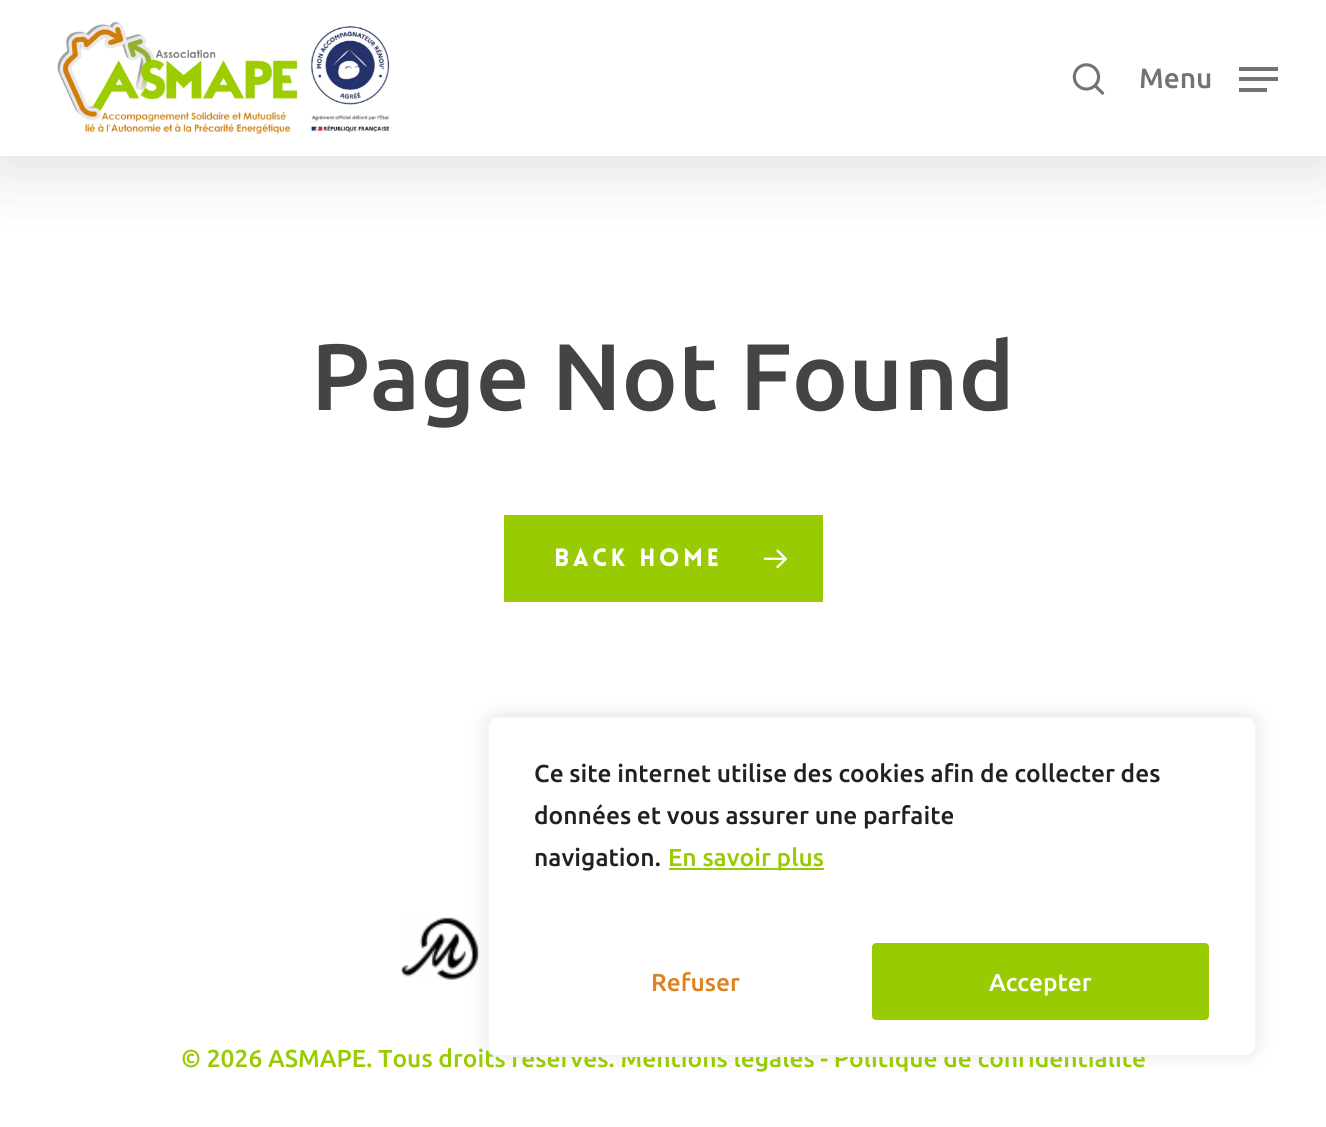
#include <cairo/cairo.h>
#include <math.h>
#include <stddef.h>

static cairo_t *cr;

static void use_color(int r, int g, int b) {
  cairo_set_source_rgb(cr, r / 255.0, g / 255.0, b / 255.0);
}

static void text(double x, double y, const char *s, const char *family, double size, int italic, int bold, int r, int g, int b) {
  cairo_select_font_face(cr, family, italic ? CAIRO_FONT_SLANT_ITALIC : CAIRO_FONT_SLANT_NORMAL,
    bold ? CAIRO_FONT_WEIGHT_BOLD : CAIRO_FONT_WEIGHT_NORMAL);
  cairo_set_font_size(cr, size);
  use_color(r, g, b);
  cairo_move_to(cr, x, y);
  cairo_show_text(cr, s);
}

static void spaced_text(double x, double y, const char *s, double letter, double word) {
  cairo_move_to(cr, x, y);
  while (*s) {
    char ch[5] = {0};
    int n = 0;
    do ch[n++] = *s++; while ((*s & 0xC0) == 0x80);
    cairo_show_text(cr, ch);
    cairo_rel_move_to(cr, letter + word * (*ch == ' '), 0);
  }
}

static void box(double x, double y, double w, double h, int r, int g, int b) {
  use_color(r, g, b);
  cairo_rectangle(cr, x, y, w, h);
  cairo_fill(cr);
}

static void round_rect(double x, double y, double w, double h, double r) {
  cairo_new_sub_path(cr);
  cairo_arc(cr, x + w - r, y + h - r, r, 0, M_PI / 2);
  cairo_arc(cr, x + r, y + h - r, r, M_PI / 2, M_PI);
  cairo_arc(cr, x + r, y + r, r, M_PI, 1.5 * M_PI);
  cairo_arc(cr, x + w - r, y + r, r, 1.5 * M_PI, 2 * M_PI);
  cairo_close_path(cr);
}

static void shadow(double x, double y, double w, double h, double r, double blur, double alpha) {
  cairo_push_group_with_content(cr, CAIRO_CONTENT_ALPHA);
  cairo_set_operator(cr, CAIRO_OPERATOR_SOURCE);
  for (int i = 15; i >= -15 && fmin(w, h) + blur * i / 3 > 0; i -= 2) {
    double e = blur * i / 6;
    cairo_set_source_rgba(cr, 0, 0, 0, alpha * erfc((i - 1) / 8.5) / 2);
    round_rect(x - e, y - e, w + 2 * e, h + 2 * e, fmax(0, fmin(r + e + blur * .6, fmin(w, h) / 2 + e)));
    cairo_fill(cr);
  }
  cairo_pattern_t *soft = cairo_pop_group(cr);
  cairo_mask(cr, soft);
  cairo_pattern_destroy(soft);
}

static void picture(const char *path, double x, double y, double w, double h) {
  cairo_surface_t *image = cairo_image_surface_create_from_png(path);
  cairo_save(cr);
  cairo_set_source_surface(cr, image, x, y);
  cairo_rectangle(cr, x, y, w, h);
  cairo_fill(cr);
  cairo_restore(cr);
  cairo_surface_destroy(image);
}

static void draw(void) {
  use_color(255, 255, 255);
  cairo_paint(cr);
  use_color(0, 0, 0);
  shadow(0, 5, 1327, 156, 0, 39.5, 0.15);
  box(0, 0, 1326, 156, 255, 255, 255);
  picture("img_01.png", 57, 21, 333, 113);
  picture("img_02.png", 1072, 63, 33, 32);
  box(1239, 67, 39, 4, 115, 115, 115);
  box(1239, 88, 28, 4, 115, 115, 115);
  box(1239, 77, 39, 4, 115, 115, 115);
  box(504, 515, 319, 87, 152, 203, 2);
  picture("img_03.png", 763, 549, 24, 20);
  picture("img_04.png", 400, 917, 80, 63);
  use_color(172, 171, 171);
  shadow(487, 714, 770, 341, 11, 9, 0.3);
  text(1139, 88, "Menu", "Ubuntu Medium", 28, 0, 0, 115, 115, 115);
  text(311, 410, "Page Not Found", "Ubuntu Medium", 94.5, 0, 0, 68, 68, 68);
  cairo_select_font_face(cr, "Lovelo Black", CAIRO_FONT_SLANT_NORMAL, CAIRO_FONT_WEIGHT_NORMAL);
  cairo_set_font_size(cr, 24.5);
  use_color(255, 255, 255);
  spaced_text(554, 566, "Back Home", 3.5, 0);
  text(181, 1067, "© 2026 ASMAPE. Tous droits réservés. Mentions légales - Politique de confidentialité", "Ubuntu Medium", 24.5, 0, 0, 152, 203, 2);
  use_color(255, 255, 255);
  round_rect(488, 717, 768, 339, 10);
  cairo_fill_preserve(cr);
  use_color(244, 244, 244);
  cairo_stroke(cr);
  text(534, 782, "Ce site internet utilise des cookies afin de collecter des", "Ubuntu Medium", 24.5, 0, 0, 33, 33, 33);
  text(534, 824, "données et vous assurer une parfaite", "Ubuntu Medium", 24.5, 0, 0, 33, 33, 33);
  text(534, 866, "navigation.", "Ubuntu Medium", 24.5, 0, 0, 33, 33, 33);
  box(669, 868, 155, 2, 152, 203, 2);
  text(668, 866, "En savoir plus", "Ubuntu Medium", 24.5, 0, 0, 152, 203, 2);
  text(651, 991, "Refuser", "Ubuntu Medium", 24.5, 0, 0, 220, 130, 33);
  use_color(152, 203, 2);
  round_rect(874, 945, 333, 73, 2);
  cairo_fill_preserve(cr);
  cairo_set_line_width(cr, 4);
  cairo_stroke(cr);
  text(989, 991, "Accepter", "Ubuntu Medium", 24.5, 0, 0, 255, 255, 255);
}

int main(void) {
  cairo_surface_t *surface = cairo_image_surface_create(CAIRO_FORMAT_RGB24, 1326, 1127);
  cr = cairo_create(surface);
  cairo_font_options_t *options = cairo_font_options_create();
  cairo_font_options_set_hint_metrics(options, CAIRO_HINT_METRICS_OFF);
  cairo_font_options_set_hint_style(options, CAIRO_HINT_STYLE_NONE);
  cairo_set_font_options(cr, options);
  cairo_set_miter_limit(cr, 4);
  draw();
  cairo_surface_write_to_png(surface, "out.png");
  cairo_font_options_destroy(options);
  cairo_destroy(cr);
  cairo_surface_destroy(surface);
  return 0;
}
